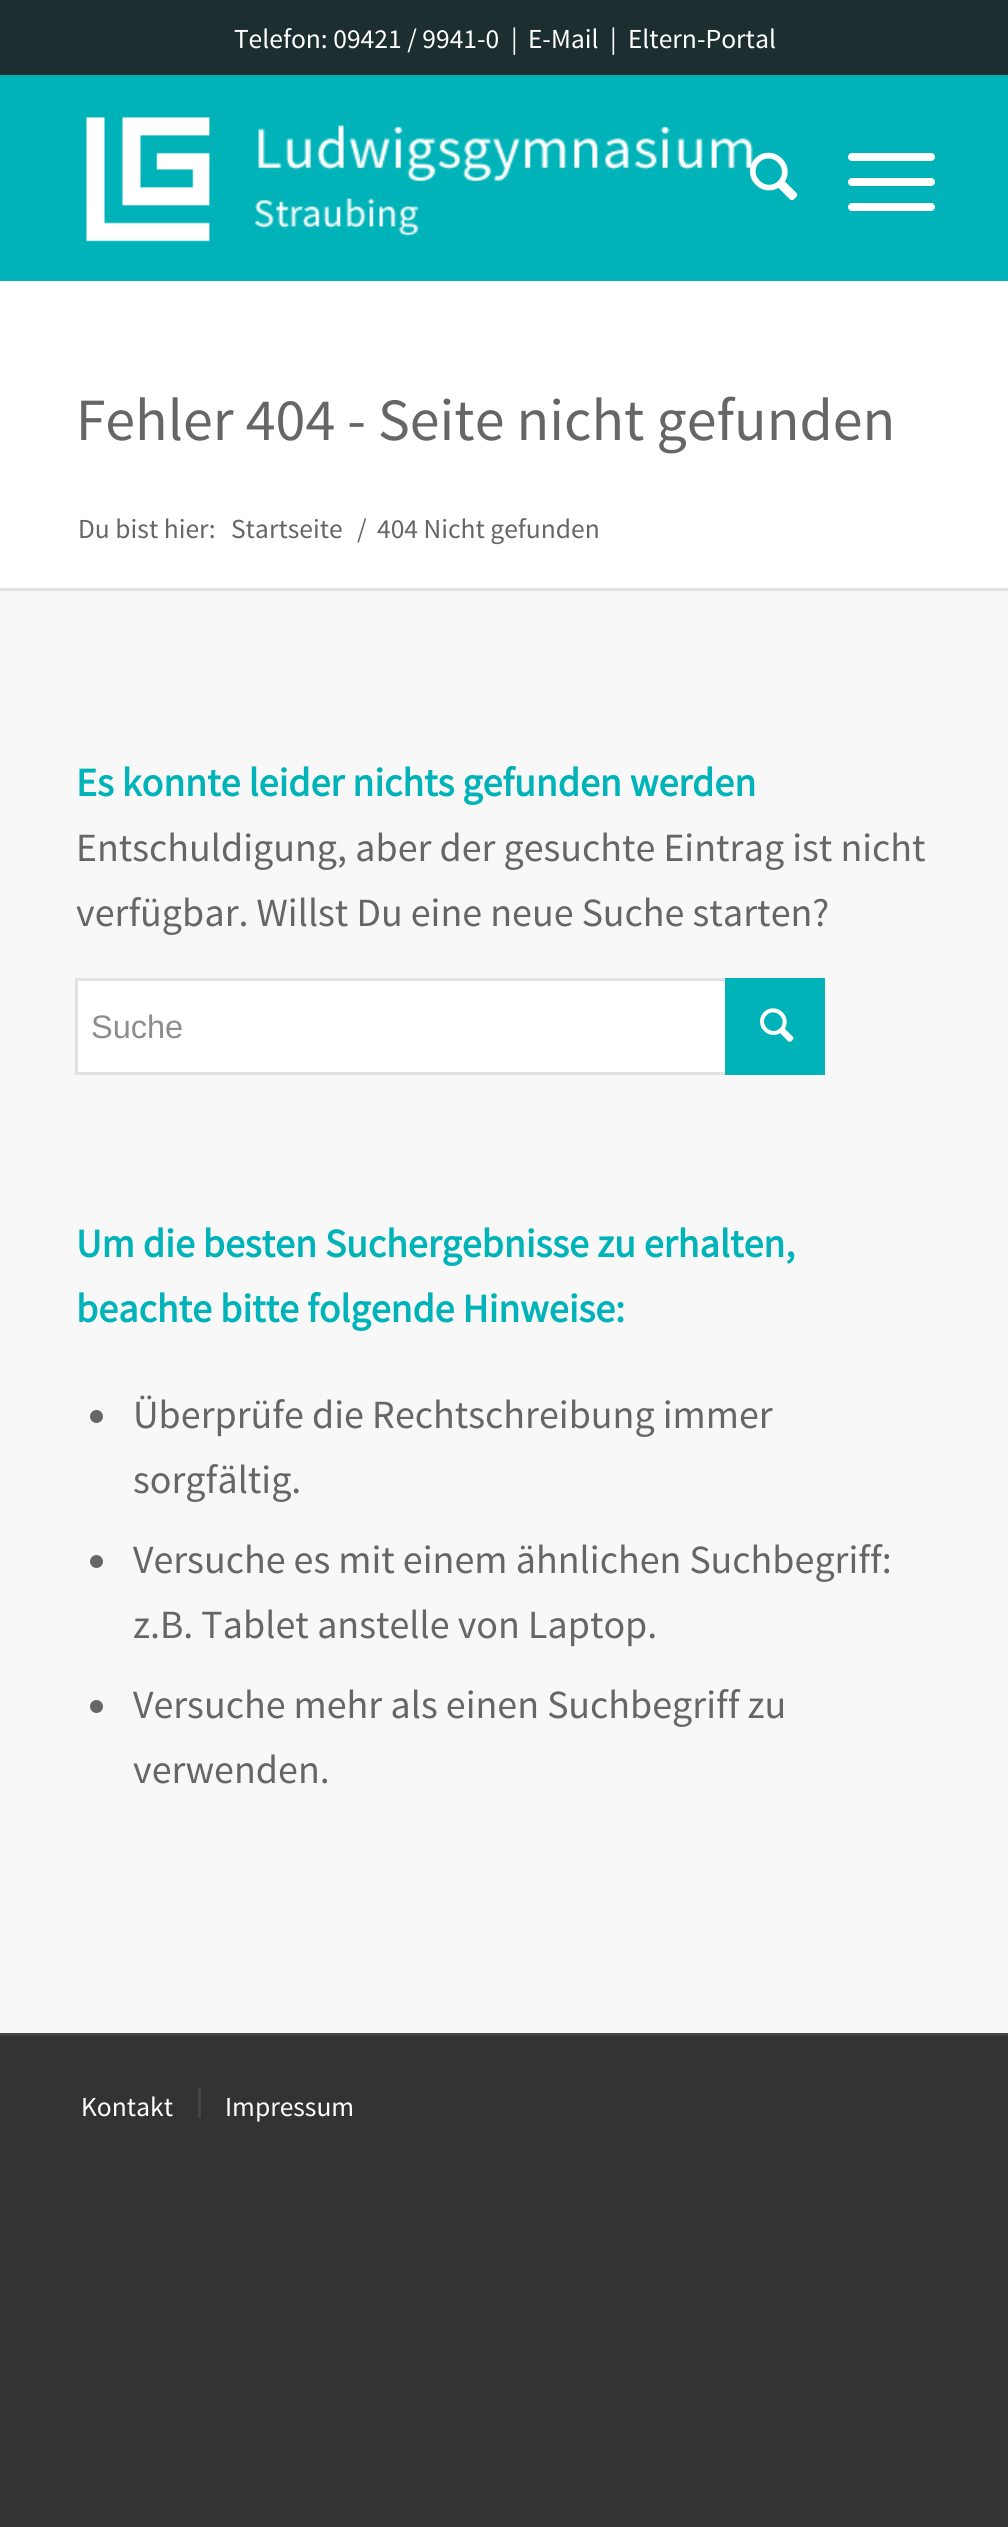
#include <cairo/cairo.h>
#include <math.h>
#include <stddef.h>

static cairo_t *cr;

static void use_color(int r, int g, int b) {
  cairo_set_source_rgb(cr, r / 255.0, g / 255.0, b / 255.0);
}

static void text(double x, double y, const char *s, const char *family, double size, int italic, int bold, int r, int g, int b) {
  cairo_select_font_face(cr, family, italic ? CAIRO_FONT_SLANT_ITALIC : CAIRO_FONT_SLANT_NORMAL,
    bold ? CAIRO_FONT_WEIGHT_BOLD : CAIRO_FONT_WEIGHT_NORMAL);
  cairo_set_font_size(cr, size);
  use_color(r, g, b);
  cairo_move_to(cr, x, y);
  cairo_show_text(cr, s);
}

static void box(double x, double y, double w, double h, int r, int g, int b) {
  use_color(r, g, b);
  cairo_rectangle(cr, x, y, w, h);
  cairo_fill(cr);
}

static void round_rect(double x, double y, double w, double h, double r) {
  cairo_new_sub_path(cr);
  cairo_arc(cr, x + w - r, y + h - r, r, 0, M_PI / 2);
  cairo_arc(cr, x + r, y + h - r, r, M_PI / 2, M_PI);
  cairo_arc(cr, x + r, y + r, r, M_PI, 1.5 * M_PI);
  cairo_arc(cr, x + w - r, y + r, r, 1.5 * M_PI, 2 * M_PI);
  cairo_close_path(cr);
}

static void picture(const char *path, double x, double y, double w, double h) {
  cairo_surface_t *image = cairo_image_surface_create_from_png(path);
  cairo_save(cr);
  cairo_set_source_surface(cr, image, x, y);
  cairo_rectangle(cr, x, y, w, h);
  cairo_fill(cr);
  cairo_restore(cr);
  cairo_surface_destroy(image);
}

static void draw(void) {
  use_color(51, 51, 51);
  cairo_paint(cr);
  box(0, 0, 1008, 75, 29, 46, 48);
  box(0, 75, 1008, 206, 0, 179, 185);
  picture("img_01.png", 86, 117, 667, 125);
  picture("img_02.png", 750, 152, 48, 49);
  use_color(255, 255, 255);
  round_rect(848, 178, 87, 8, 4);
  cairo_fill(cr);
  round_rect(848, 153, 87, 8, 4);
  cairo_fill(cr);
  round_rect(848, 203, 87, 8, 4);
  cairo_fill(cr);
  box(0, 281, 1008, 307, 255, 255, 255);
  box(0, 591, 1008, 1442, 248, 248, 248);
  box(0, 588, 1008, 3, 225, 225, 225);
  box(78, 981, 647, 91, 255, 255, 255);
  cairo_rectangle(cr, 76.5, 979.5, 747, 94);
  use_color(225, 225, 225);
  cairo_set_line_width(cr, 3);
  cairo_stroke(cr);
  box(725, 978, 100, 97, 0, 179, 185);
  picture("img_03.png", 760, 1008, 34, 34);
  use_color(102, 102, 102);
  cairo_arc(cr, 96.5, 1416.5, 6.5, 0, 2 * M_PI);
  cairo_fill(cr);
  cairo_arc(cr, 96.5, 1561.5, 6.5, 0, 2 * M_PI);
  cairo_fill(cr);
  cairo_arc(cr, 96.5, 1706.5, 6.5, 0, 2 * M_PI);
  cairo_fill(cr);
  box(0, 2033, 1008, 3, 68, 68, 68);
  box(198, 2088, 3, 30, 68, 68, 68);
  text(234, 48, "Telefon: 09421 / 9941-0", "Source Sans Pro", 27.5, 0, 0, 255, 255, 255);
  text(511, 48, "|", "Source Sans Pro", 27.5, 0, 0, 255, 255, 255);
  text(528, 48, "E-Mail", "Source Sans Pro", 27.5, 0, 0, 255, 255, 255);
  text(610, 48, "|", "Source Sans Pro", 27.5, 0, 0, 255, 255, 255);
  text(628, 48, "Eltern-Portal", "Source Sans Pro", 27.5, 0, 0, 255, 255, 255);
  text(76, 440, "Fehler 404 - Seite nicht gefunden", "Source Sans Pro", 60, 0, 0, 102, 102, 102);
  text(78, 538, "Du bist hier:", "Source Sans Pro", 27.5, 0, 0, 102, 102, 102);
  text(231, 538, "Startseite", "Source Sans Pro", 27.5, 0, 0, 102, 102, 102);
  text(357, 538, "/", "Source Sans Pro", 27.5, 0, 0, 102, 102, 102);
  text(377, 538, "404 Nicht gefunden", "Source Sans Pro", 27.5, 0, 0, 102, 102, 102);
  text(76, 796, "Es konnte leider nichts gefunden werden", "Source Sans Pro", 40, 0, 1, 0, 179, 185);
  text(76, 861, "Entschuldigung, aber der gesuchte Eintrag ist nicht", "Source Sans Pro", 40, 0, 0, 102, 102, 102);
  text(76, 926, "verfügbar. Willst Du eine neue Suche starten?", "Source Sans Pro", 40, 0, 0, 102, 102, 102);
  text(91, 1038, "Suche", "Liberation Sans", 32.5, 0, 0, 141, 141, 141);
  text(76, 1257, "Um die besten Suchergebnisse zu erhalten,", "Source Sans Pro", 40, 0, 1, 0, 179, 185);
  text(76, 1322, "beachte bitte folgende Hinweise:", "Source Sans Pro", 40, 0, 1, 0, 179, 185);
  text(133, 1428, "Überprüfe die Rechtschreibung immer", "Source Sans Pro", 40, 0, 0, 102, 102, 102);
  text(133, 1493, "sorgfältig.", "Source Sans Pro", 40, 0, 0, 102, 102, 102);
  text(133, 1573, "Versuche es mit einem ähnlichen Suchbegriff:", "Source Sans Pro", 40, 0, 0, 102, 102, 102);
  text(133, 1638, "z.B. Tablet anstelle von Laptop.", "Source Sans Pro", 40, 0, 0, 102, 102, 102);
  text(133, 1718, "Versuche mehr als einen Suchbegriff zu", "Source Sans Pro", 40, 0, 0, 102, 102, 102);
  text(133, 1783, "verwenden.", "Source Sans Pro", 40, 0, 0, 102, 102, 102);
  text(81, 2116, "Kontakt", "Source Sans Pro", 27.5, 0, 0, 255, 255, 255);
  text(225, 2116, "Impressum", "Source Sans Pro", 27.5, 0, 0, 255, 255, 255);
}

int main(void) {
  cairo_surface_t *surface = cairo_image_surface_create(CAIRO_FORMAT_RGB24, 1008, 2527);
  cr = cairo_create(surface);
  cairo_font_options_t *options = cairo_font_options_create();
  cairo_font_options_set_hint_metrics(options, CAIRO_HINT_METRICS_OFF);
  cairo_font_options_set_hint_style(options, CAIRO_HINT_STYLE_NONE);
  cairo_set_font_options(cr, options);
  cairo_set_miter_limit(cr, 4);
  draw();
  cairo_surface_write_to_png(surface, "out.png");
  cairo_font_options_destroy(options);
  cairo_destroy(cr);
  cairo_surface_destroy(surface);
  return 0;
}
